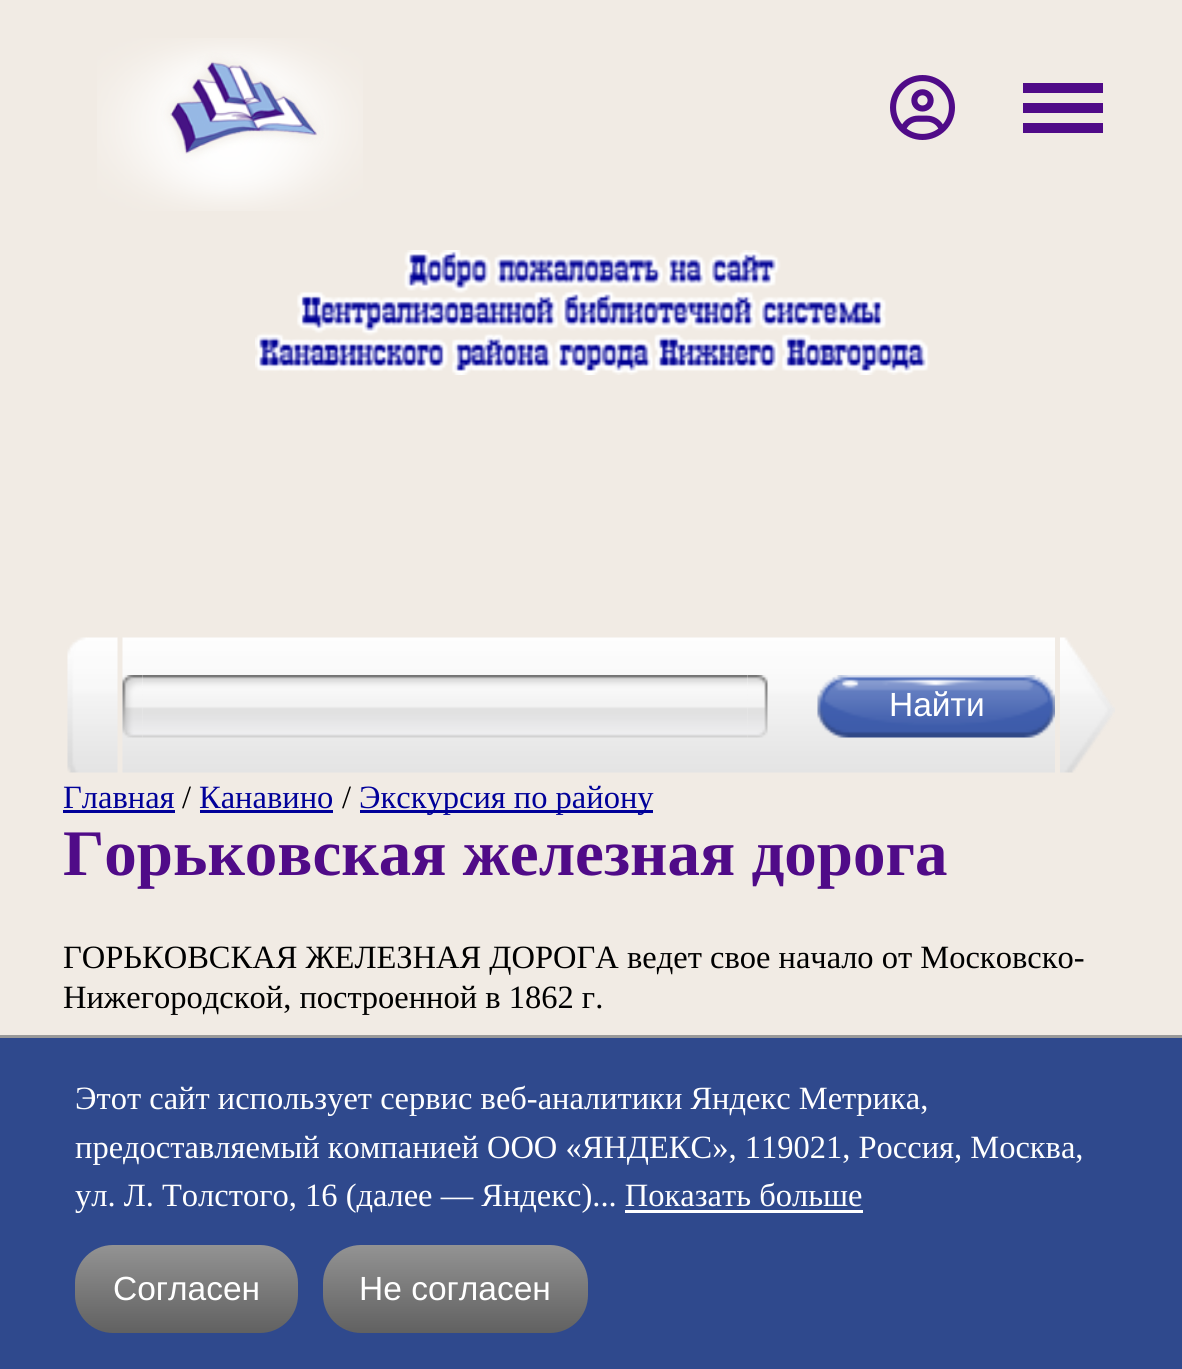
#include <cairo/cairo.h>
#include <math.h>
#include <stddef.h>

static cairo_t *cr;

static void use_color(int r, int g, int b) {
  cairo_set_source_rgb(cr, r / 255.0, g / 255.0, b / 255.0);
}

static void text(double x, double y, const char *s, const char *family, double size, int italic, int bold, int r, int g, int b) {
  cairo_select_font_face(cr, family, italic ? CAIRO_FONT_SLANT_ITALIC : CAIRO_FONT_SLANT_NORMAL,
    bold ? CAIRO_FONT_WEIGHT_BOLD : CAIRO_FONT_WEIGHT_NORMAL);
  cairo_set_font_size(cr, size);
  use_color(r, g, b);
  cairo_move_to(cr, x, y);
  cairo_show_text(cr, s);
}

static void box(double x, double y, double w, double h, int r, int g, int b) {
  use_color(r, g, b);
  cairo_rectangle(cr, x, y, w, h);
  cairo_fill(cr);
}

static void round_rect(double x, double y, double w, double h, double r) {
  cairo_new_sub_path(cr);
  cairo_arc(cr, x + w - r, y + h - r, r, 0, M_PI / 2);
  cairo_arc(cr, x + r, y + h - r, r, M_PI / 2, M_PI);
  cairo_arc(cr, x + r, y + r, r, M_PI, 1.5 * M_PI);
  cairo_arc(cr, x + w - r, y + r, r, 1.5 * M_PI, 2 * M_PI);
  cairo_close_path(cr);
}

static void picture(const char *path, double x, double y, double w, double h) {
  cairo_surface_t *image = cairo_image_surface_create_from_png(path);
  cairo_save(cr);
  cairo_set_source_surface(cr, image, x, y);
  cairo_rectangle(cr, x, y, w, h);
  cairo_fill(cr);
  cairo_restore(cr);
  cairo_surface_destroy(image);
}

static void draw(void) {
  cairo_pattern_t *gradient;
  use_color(241, 235, 228);
  cairo_paint(cr);
  picture("img_01.png", 97, 38, 266, 173);
  picture("img_02.png", 890, 75, 65, 65);
  box(1023, 103, 80, 10, 80, 11, 136);
  box(1023, 83, 80, 10, 80, 11, 136);
  box(1023, 123, 80, 10, 80, 11, 136);
  picture("img_03.png", 255, 250, 675, 125);
  picture("img_04.png", 67, 637, 51, 136);
  picture("img_05.png", 122, 637, 933, 136);
  picture("img_06.png", 122, 675, 21, 63);
  picture("img_07.png", 747, 675, 21, 63);
  picture("img_08.png", 142, 675, 606, 63);
  picture("img_09.png", 817, 675, 238, 63);
  picture("img_10.png", 1060, 637, 55, 136);
  box(63, 810, 112, 3, 0, 0, 153);
  box(200, 810, 133, 3, 0, 0, 153);
  box(360, 810, 293, 3, 0, 0, 153);
  box(0, 1038, 1182, 331, 47, 73, 141);
  box(0, 1035, 1182, 3, 153, 153, 153);
  box(625, 1210, 238, 3, 255, 255, 255);
  gradient = cairo_pattern_create_linear(186, 1245, 186, 1333);
  cairo_pattern_add_color_stop_rgba(gradient, 0, 0.576, 0.576, 0.576, 1);
  cairo_pattern_add_color_stop_rgba(gradient, 0.5, 0.478, 0.478, 0.478, 1);
  cairo_pattern_add_color_stop_rgba(gradient, 1, 0.38, 0.38, 0.38, 1);
  cairo_set_source(cr, gradient);
  cairo_pattern_destroy(gradient);
  round_rect(75, 1245, 223, 88, 38);
  cairo_fill(cr);
  gradient = cairo_pattern_create_linear(455, 1245, 455, 1333);
  cairo_pattern_add_color_stop_rgba(gradient, 0, 0.576, 0.576, 0.576, 1);
  cairo_pattern_add_color_stop_rgba(gradient, 0.5, 0.478, 0.478, 0.478, 1);
  cairo_pattern_add_color_stop_rgba(gradient, 1, 0.38, 0.38, 0.38, 1);
  cairo_set_source(cr, gradient);
  cairo_pattern_destroy(gradient);
  round_rect(323, 1245, 265, 88, 38);
  cairo_fill(cr);
  text(889, 716, "Найти", "Liberation Sans", 33.5, 0, 0, 255, 255, 255);
  text(63, 808, "Главная", "Liberation Serif", 32.5, 0, 0, 0, 0, 153);
  text(182, 808, "/", "Liberation Serif", 32.5, 0, 0, 0, 0, 0);
  text(199, 808, "Канавино", "Liberation Serif", 32.5, 0, 0, 0, 0, 153);
  text(342, 808, "/", "Liberation Serif", 32.5, 0, 0, 0, 0, 0);
  text(359, 808, "Экскурсия по району", "Liberation Serif", 32.5, 0, 0, 0, 0, 153);
  text(63, 875, "Горьковская железная дорога", "Liberation Serif", 65, 0, 1, 80, 11, 136);
  text(63, 968, "ГОРЬКОВСКАЯ ЖЕЛЕЗНАЯ ДОРОГА ведет свое начало от Московско-", "Liberation Serif", 32.5, 0, 0, 0, 0, 0);
  text(63, 1008, "Нижегородской, построенной в 1862 г.", "Liberation Serif", 32.5, 0, 0, 0, 0, 0);
  text(75, 1109, "Этот сайт использует сервис веб-аналитики Яндекс Метрика,", "Liberation Serif", 32.5, 0, 0, 255, 255, 255);
  text(75, 1158, "предоставляемый компанией ООО «ЯНДЕКС», 119021, Россия, Москва,", "Liberation Serif", 32.5, 0, 0, 255, 255, 255);
  text(75, 1206, "ул. Л. Толстого, 16 (далее — Яндекс)... Показать больше", "Liberation Serif", 32.5, 0, 0, 255, 255, 255);
  text(113, 1300, "Согласен", "Liberation Sans", 33.5, 0, 0, 255, 255, 255);
  text(359, 1300, "Не согласен", "Liberation Sans", 33.5, 0, 0, 255, 255, 255);
}

int main(void) {
  cairo_surface_t *surface = cairo_image_surface_create(CAIRO_FORMAT_RGB24, 1182, 1369);
  cr = cairo_create(surface);
  cairo_font_options_t *options = cairo_font_options_create();
  cairo_font_options_set_hint_metrics(options, CAIRO_HINT_METRICS_OFF);
  cairo_font_options_set_hint_style(options, CAIRO_HINT_STYLE_NONE);
  cairo_set_font_options(cr, options);
  cairo_set_miter_limit(cr, 4);
  draw();
  cairo_surface_write_to_png(surface, "out.png");
  cairo_font_options_destroy(options);
  cairo_destroy(cr);
  cairo_surface_destroy(surface);
  return 0;
}
